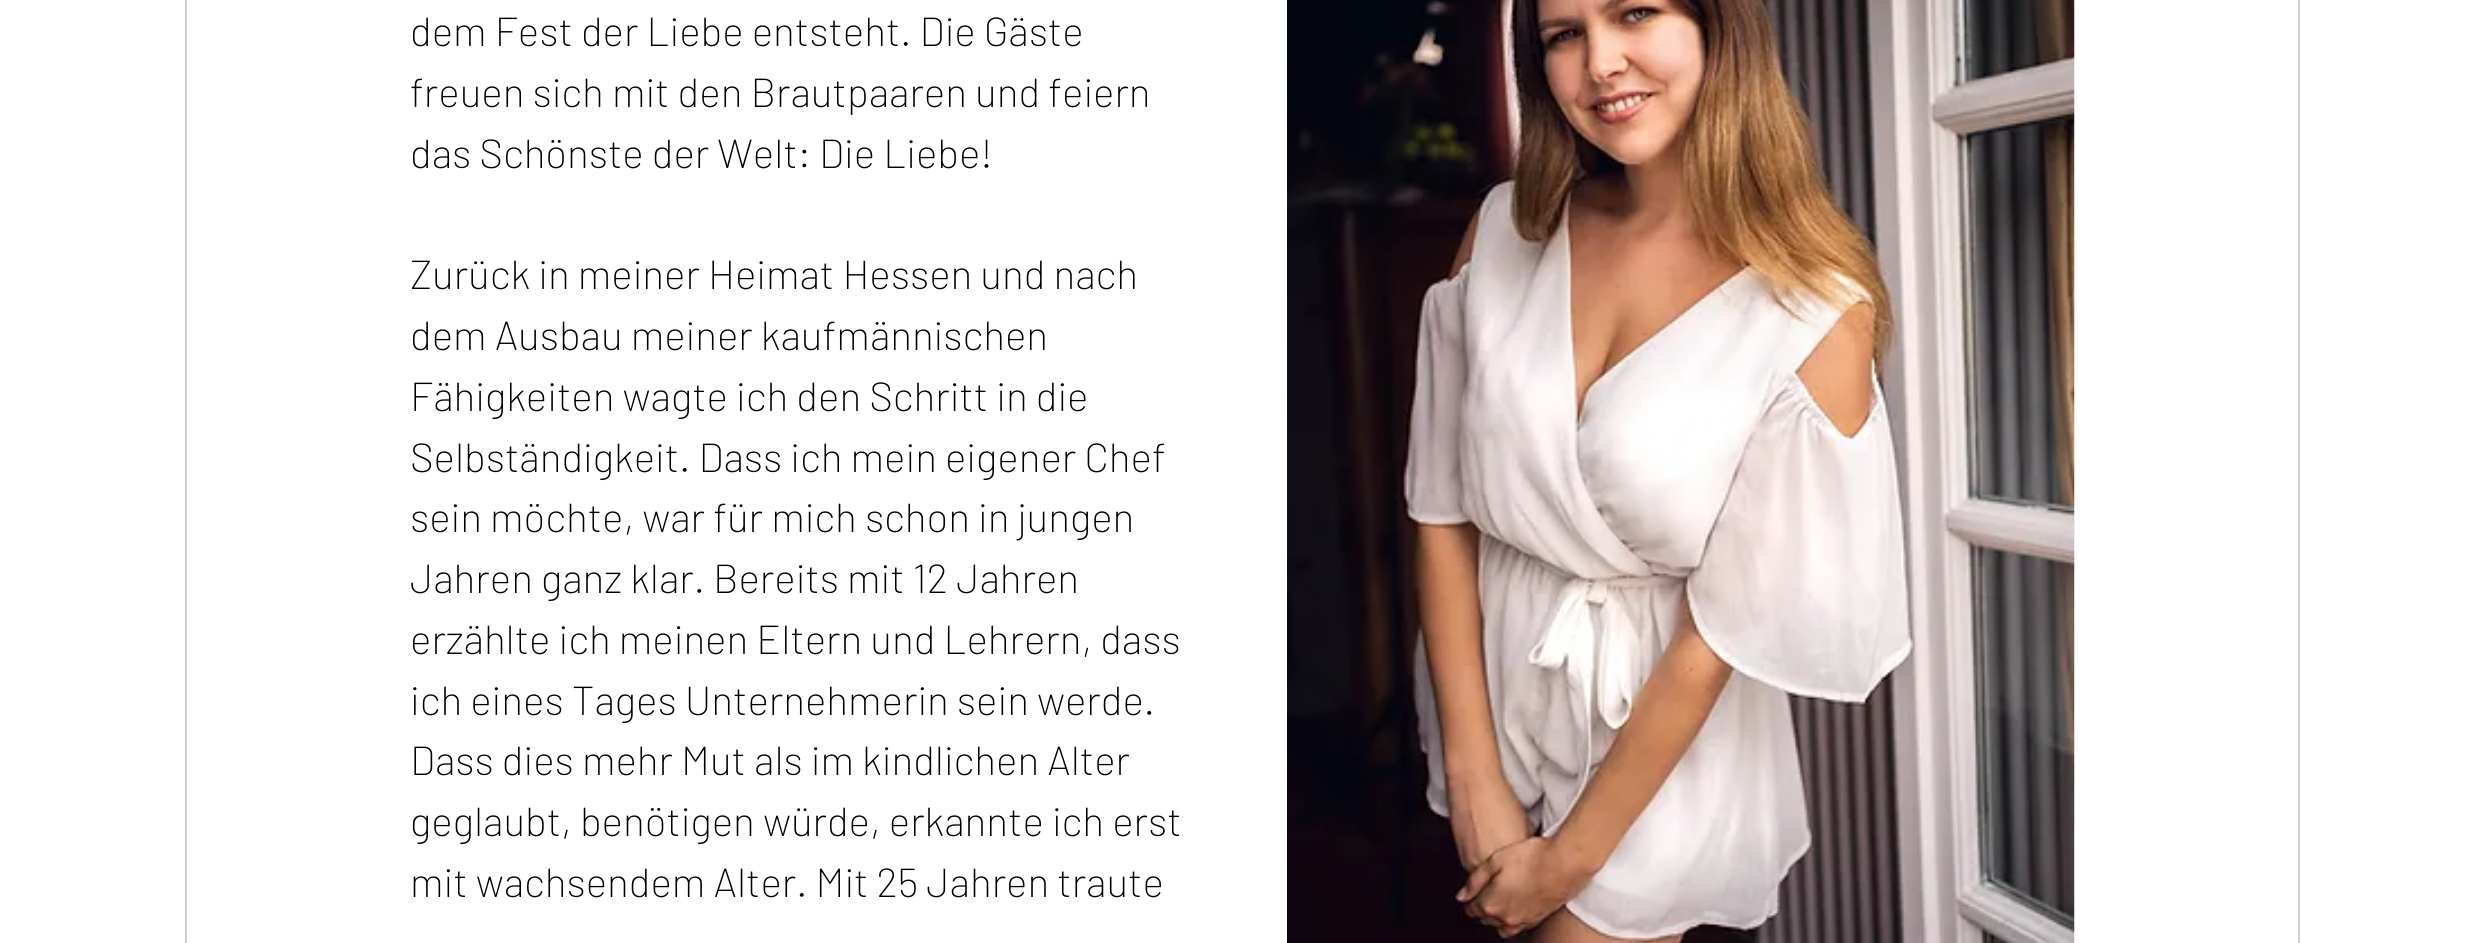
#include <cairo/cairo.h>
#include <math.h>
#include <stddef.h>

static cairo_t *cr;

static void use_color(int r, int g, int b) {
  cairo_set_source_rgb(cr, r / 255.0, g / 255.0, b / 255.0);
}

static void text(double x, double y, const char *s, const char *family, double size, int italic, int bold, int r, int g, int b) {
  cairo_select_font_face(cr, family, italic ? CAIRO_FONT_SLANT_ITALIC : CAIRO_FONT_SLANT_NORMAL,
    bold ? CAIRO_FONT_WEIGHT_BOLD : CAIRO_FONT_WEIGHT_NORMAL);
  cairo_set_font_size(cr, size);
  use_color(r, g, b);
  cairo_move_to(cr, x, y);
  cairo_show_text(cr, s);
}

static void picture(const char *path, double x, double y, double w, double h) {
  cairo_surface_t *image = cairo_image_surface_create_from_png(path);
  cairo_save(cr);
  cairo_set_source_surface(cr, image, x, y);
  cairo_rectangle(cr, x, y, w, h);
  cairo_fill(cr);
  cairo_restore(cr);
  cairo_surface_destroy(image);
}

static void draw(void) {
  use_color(255, 255, 255);
  cairo_paint(cr);
  cairo_rectangle(cr, 186, -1, 2113, 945);
  use_color(207, 207, 207);
  cairo_stroke(cr);
  picture("img_01.png", 1287, 0, 788, 943);
  text(410, 46, "dem Fest der Liebe entsteht. Die Gäste", "Barlow ExtraLight", 40.5, 0, 0, 0, 0, 0);
  text(410, 107, "freuen sich mit den Brautpaaren und feiern", "Barlow ExtraLight", 40.5, 0, 0, 0, 0, 0);
  text(410, 168, "das Schönste der Welt: Die Liebe!", "Barlow ExtraLight", 40.5, 0, 0, 0, 0, 0);
  text(410, 289, "Zurück in meiner Heimat Hessen und nach", "Barlow ExtraLight", 40.5, 0, 0, 0, 0, 0);
  text(410, 350, "dem Ausbau meiner kaufmännischen", "Barlow ExtraLight", 40.5, 0, 0, 0, 0, 0);
  text(410, 411, "Fähigkeiten wagte ich den Schritt in die", "Barlow ExtraLight", 40.5, 0, 0, 0, 0, 0);
  text(410, 472, "Selbständigkeit. Dass ich mein eigener Chef", "Barlow ExtraLight", 40.5, 0, 0, 0, 0, 0);
  text(410, 532, "sein möchte, war für mich schon in jungen", "Barlow ExtraLight", 40.5, 0, 0, 0, 0, 0);
  text(410, 593, "Jahren ganz klar. Bereits mit 12 Jahren", "Barlow ExtraLight", 40.5, 0, 0, 0, 0, 0);
  text(410, 654, "erzählte ich meinen Eltern und Lehrern, dass", "Barlow ExtraLight", 40.5, 0, 0, 0, 0, 0);
  text(410, 715, "ich eines Tages Unternehmerin sein werde.", "Barlow ExtraLight", 40.5, 0, 0, 0, 0, 0);
  text(410, 775, "Dass dies mehr Mut als im kindlichen Alter", "Barlow ExtraLight", 40.5, 0, 0, 0, 0, 0);
  text(410, 836, "geglaubt, benötigen würde, erkannte ich erst", "Barlow ExtraLight", 40.5, 0, 0, 0, 0, 0);
  text(410, 897, "mit wachsendem Alter. Mit 25 Jahren traute", "Barlow ExtraLight", 40.5, 0, 0, 0, 0, 0);
}

int main(void) {
  cairo_surface_t *surface = cairo_image_surface_create(CAIRO_FORMAT_RGB24, 2482, 943);
  cr = cairo_create(surface);
  cairo_font_options_t *options = cairo_font_options_create();
  cairo_font_options_set_hint_metrics(options, CAIRO_HINT_METRICS_OFF);
  cairo_font_options_set_hint_style(options, CAIRO_HINT_STYLE_NONE);
  cairo_set_font_options(cr, options);
  cairo_set_miter_limit(cr, 4);
  draw();
  cairo_surface_write_to_png(surface, "out.png");
  cairo_font_options_destroy(options);
  cairo_destroy(cr);
  cairo_surface_destroy(surface);
  return 0;
}
